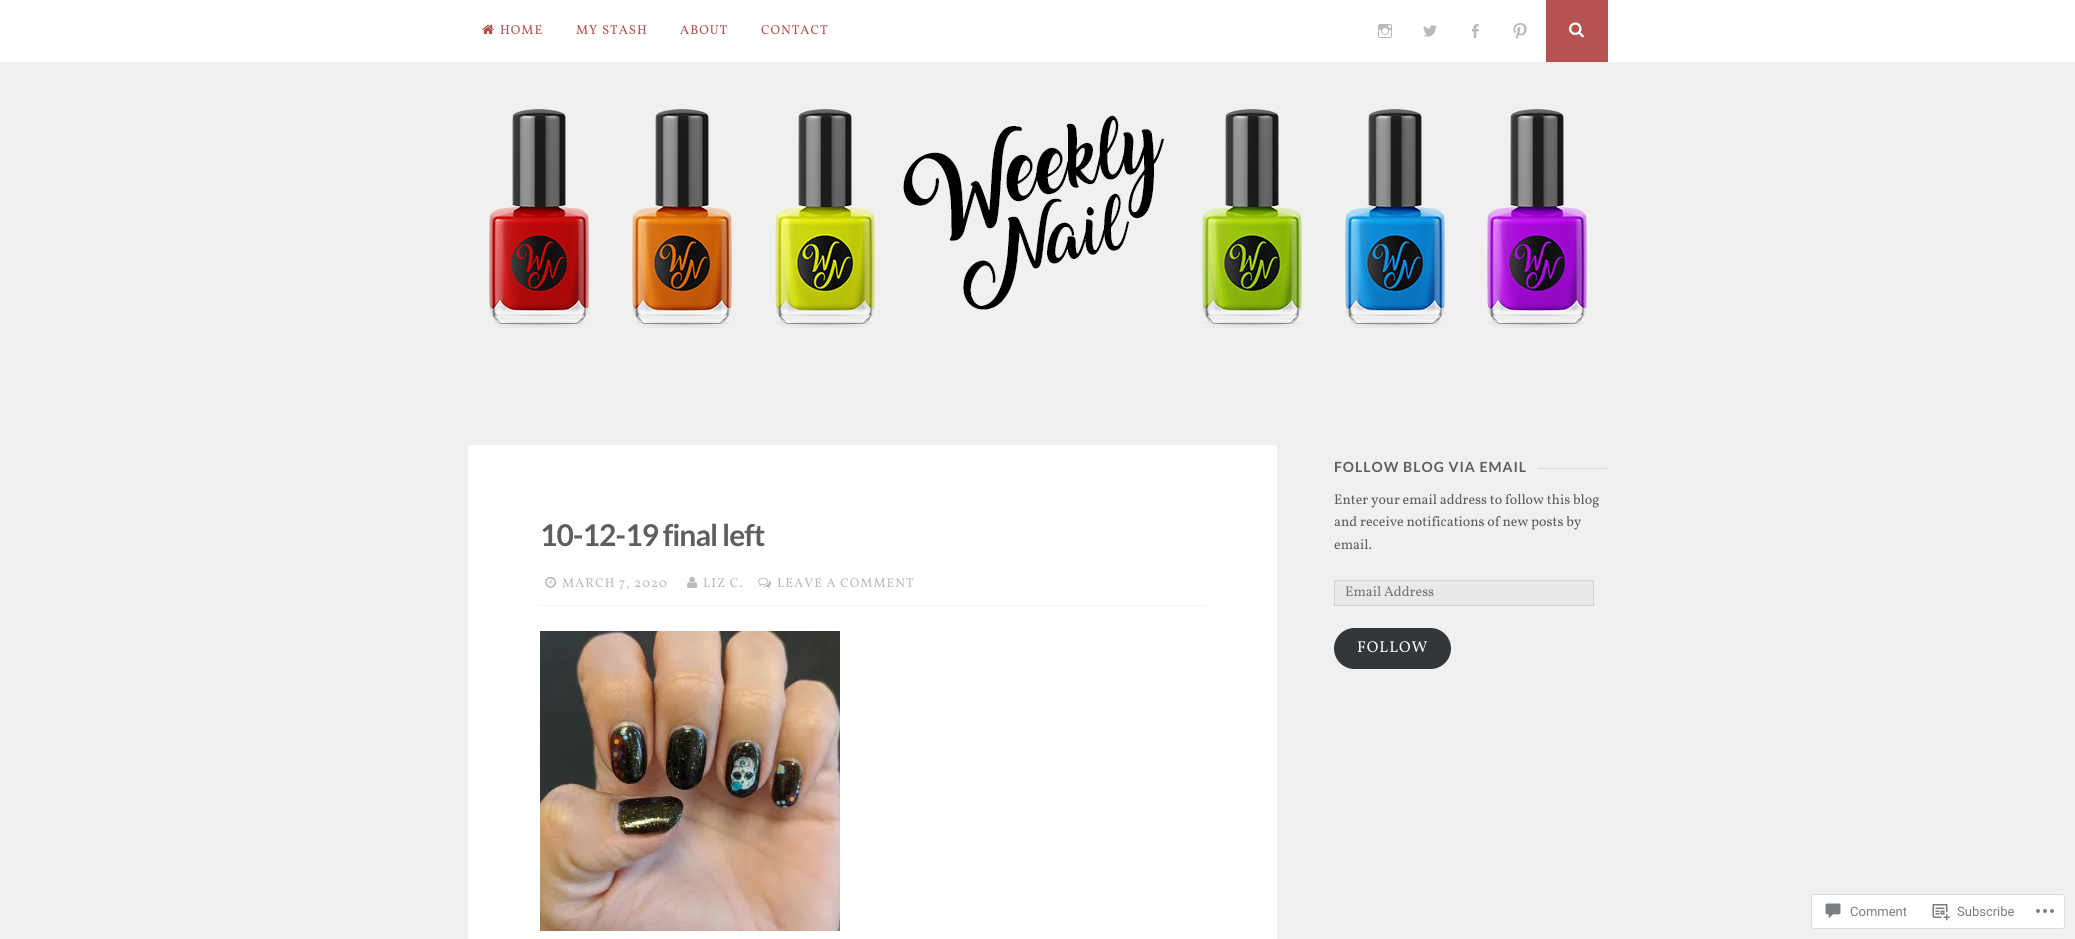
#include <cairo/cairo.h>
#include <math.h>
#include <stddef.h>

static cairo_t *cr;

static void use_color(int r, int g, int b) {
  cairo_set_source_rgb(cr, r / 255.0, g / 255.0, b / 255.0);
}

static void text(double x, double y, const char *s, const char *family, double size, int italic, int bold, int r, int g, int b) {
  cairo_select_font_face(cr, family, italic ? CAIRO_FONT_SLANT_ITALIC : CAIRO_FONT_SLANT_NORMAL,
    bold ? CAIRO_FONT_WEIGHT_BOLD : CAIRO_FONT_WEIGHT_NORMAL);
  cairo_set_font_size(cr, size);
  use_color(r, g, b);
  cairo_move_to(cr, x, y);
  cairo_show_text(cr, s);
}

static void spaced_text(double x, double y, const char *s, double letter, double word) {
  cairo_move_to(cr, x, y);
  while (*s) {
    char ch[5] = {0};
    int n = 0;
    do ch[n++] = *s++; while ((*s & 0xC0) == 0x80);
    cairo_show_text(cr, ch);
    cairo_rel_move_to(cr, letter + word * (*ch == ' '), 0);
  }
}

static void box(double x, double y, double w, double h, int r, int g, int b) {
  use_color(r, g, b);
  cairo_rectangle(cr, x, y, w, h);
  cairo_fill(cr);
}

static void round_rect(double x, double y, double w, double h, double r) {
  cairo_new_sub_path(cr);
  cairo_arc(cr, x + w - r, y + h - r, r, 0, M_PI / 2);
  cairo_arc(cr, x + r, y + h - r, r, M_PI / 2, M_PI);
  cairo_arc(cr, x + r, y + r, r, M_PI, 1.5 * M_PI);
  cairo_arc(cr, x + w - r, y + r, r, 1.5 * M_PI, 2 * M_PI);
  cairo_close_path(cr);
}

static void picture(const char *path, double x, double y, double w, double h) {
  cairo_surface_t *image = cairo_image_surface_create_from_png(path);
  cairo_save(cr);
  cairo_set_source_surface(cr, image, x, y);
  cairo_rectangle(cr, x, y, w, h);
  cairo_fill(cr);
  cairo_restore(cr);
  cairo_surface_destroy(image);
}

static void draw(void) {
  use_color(240, 240, 240);
  cairo_paint(cr);
  box(0, 0, 2075, 62, 255, 255, 255);
  picture("img_01.png", 482, 24, 12, 10);
  picture("img_02.png", 1378, 24, 14, 14);
  picture("img_03.png", 1423, 25, 14, 12);
  picture("img_04.png", 1472, 24, 7, 14);
  picture("img_05.png", 1513, 23, 14, 16);
  box(1546, 0, 62, 62, 182, 82, 82);
  picture("img_06.png", 1569, 22, 15, 16);
  picture("img_07.png", 489, 109, 1098, 219);
  box(468, 445, 809, 494, 255, 255, 255);
  cairo_new_path(cr);
  cairo_move_to(cr, 540, 605.5);
  cairo_line_to(cr, 1205, 605.5);
  use_color(230, 230, 230);
  cairo_set_line_width(cr, 1);
  cairo_set_dash(cr, (double[]){1, 1}, 2, 0);
  cairo_stroke(cr);
  picture("img_08.png", 545, 576, 12, 12);
  picture("img_09.png", 687, 576, 11, 12);
  picture("img_10.png", 758, 577, 13, 11);
  picture("img_11.png", 540, 631, 300, 300);
  box(1538, 468, 69, 1, 216, 216, 216);
  use_color(233, 233, 233);
  cairo_rectangle(cr, 1334.5, 580.5, 259, 25);
  cairo_fill_preserve(cr);
  use_color(210, 210, 210);
  cairo_set_dash(cr, NULL, 0, 0);
  cairo_stroke(cr);
  use_color(50, 55, 60);
  round_rect(1334, 628, 117, 41, 20.5);
  cairo_fill(cr);
  use_color(255, 255, 255);
  round_rect(1811.5, 894.5, 253, 34, 2.5);
  cairo_fill_preserve(cr);
  use_color(220, 220, 222);
  cairo_stroke(cr);
  picture("img_12.png", 1825, 903, 16, 16);
  picture("img_13.png", 1932, 904, 18, 17);
  picture("img_14.png", 2036, 909, 18, 4);
  cairo_select_font_face(cr, "Vollkorn", CAIRO_FONT_SLANT_NORMAL, CAIRO_FONT_WEIGHT_NORMAL);
  cairo_set_font_size(cr, 13);
  use_color(181, 78, 78);
  spaced_text(500, 34, "HOME", 1, 0);
  spaced_text(576, 34, "MY STASH", 1, 0);
  spaced_text(680, 34, "ABOUT", 1, 0);
  spaced_text(761, 34, "CONTACT", 1, 0);
  cairo_select_font_face(cr, "Lato", CAIRO_FONT_SLANT_NORMAL, CAIRO_FONT_WEIGHT_BOLD);
  cairo_set_font_size(cr, 30);
  use_color(94, 94, 94);
  spaced_text(540, 546, "10-12-19 final left", -1, 0);
  cairo_select_font_face(cr, "Vollkorn", CAIRO_FONT_SLANT_NORMAL, CAIRO_FONT_WEIGHT_NORMAL);
  cairo_set_font_size(cr, 13);
  use_color(185, 185, 185);
  spaced_text(562, 587, "MARCH 7, 2020", 1, 0);
  spaced_text(703, 587, "LIZ C.", 1, 0);
  spaced_text(777, 587, "LEAVE A COMMENT", 1, 0);
  cairo_select_font_face(cr, "Lato", CAIRO_FONT_SLANT_NORMAL, CAIRO_FONT_WEIGHT_BOLD);
  cairo_set_font_size(cr, 14);
  use_color(94, 94, 94);
  spaced_text(1334, 472, "FOLLOW BLOG VIA EMAIL", 1, 0);
  text(1334, 504, "Enter your email address to follow this blog", "Vollkorn", 14, 0, 0, 94, 94, 94);
  text(1334, 526, "and receive notifications of new posts by", "Vollkorn", 14, 0, 0, 94, 94, 94);
  text(1334, 549, "email.", "Vollkorn", 14, 0, 0, 94, 94, 94);
  text(1345, 596, "Email Address", "Vollkorn", 14, 0, 0, 117, 117, 117);
  cairo_set_font_size(cr, 15.75);
  use_color(255, 255, 255);
  spaced_text(1357, 652, "FOLLOW", 1, 0);
  text(1850, 916, "Comment", "Roboto", 13, 0, 0, 122, 126, 132);
  text(1957, 916, "Subscribe", "Roboto", 13, 0, 0, 122, 126, 132);
}

int main(void) {
  cairo_surface_t *surface = cairo_image_surface_create(CAIRO_FORMAT_RGB24, 2075, 939);
  cr = cairo_create(surface);
  cairo_font_options_t *options = cairo_font_options_create();
  cairo_font_options_set_hint_metrics(options, CAIRO_HINT_METRICS_OFF);
  cairo_font_options_set_hint_style(options, CAIRO_HINT_STYLE_NONE);
  cairo_set_font_options(cr, options);
  cairo_set_miter_limit(cr, 4);
  draw();
  cairo_surface_write_to_png(surface, "out.png");
  cairo_font_options_destroy(options);
  cairo_destroy(cr);
  cairo_surface_destroy(surface);
  return 0;
}
